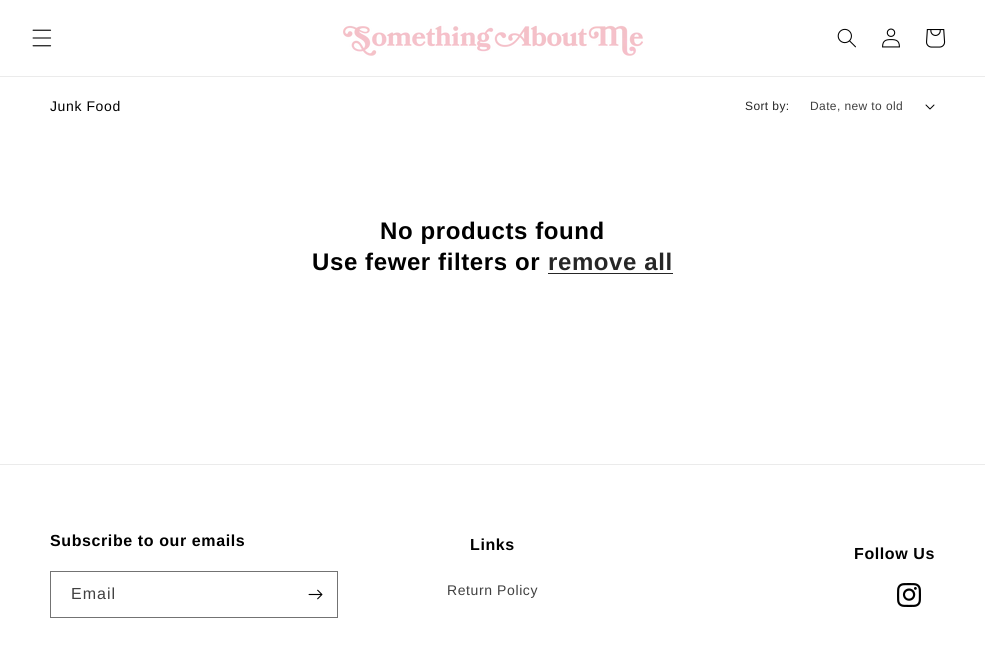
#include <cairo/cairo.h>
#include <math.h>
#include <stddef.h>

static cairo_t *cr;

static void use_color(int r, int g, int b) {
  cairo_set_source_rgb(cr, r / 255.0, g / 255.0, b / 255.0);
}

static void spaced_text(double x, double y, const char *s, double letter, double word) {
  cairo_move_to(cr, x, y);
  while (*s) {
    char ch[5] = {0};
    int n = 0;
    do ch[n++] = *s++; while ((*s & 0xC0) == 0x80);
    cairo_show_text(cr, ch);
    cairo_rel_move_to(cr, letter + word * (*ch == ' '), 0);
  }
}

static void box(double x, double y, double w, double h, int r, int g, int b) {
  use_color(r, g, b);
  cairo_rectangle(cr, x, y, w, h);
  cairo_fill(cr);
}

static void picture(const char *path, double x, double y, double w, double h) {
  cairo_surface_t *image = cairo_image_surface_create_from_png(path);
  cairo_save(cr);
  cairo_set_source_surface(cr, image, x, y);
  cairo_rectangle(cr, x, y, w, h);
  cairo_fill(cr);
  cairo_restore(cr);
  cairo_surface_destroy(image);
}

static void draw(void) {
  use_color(255, 255, 255);
  cairo_paint(cr);
  box(0, 76, 985, 1, 235, 235, 235);
  picture("img_01.png", 32, 29, 20, 18);
  picture("img_02.png", 343, 25, 300, 31);
  picture("img_03.png", 837, 28, 19, 20);
  picture("img_04.png", 882, 28, 18, 20);
  picture("img_05.png", 926, 29, 20, 19);
  picture("img_06.png", 925, 104, 10, 6);
  box(548, 273, 125, 1, 38, 38, 38);
  box(0, 464, 985, 1, 235, 235, 235);
  cairo_rectangle(cr, 50.5, 571.5, 287, 46);
  use_color(115, 115, 115);
  cairo_set_line_width(cr, 1);
  cairo_stroke(cr);
  picture("img_07.png", 308, 589, 15, 11);
  picture("img_08.png", 897, 583, 24, 24);
  cairo_select_font_face(cr, "Liberation Sans", CAIRO_FONT_SLANT_NORMAL, CAIRO_FONT_WEIGHT_NORMAL);
  cairo_set_font_size(cr, 14);
  use_color(0, 0, 0);
  spaced_text(50, 111, "Junk Food", 0.6, 0);
  cairo_set_font_size(cr, 12);
  use_color(38, 38, 38);
  spaced_text(745, 110, "Sort by:", 0.4, 0);
  use_color(64, 64, 64);
  spaced_text(810, 110, "Date, new to old", 0.4, 0);
  cairo_select_font_face(cr, "Liberation Sans", CAIRO_FONT_SLANT_NORMAL, CAIRO_FONT_WEIGHT_BOLD);
  cairo_set_font_size(cr, 24);
  use_color(0, 0, 0);
  spaced_text(380, 239, "No products found", 0.6, 0);
  spaced_text(312, 270, "Use fewer filters or", 0.6, 0);
  use_color(38, 38, 38);
  spaced_text(548, 270, "remove all", 0.6, 0);
  cairo_set_font_size(cr, 16);
  use_color(0, 0, 0);
  spaced_text(50, 546, "Subscribe to our emails", 0.6, 0);
  cairo_select_font_face(cr, "Liberation Sans", CAIRO_FONT_SLANT_NORMAL, CAIRO_FONT_WEIGHT_NORMAL);
  use_color(64, 64, 64);
  spaced_text(71, 599, "Email", 1, 0);
  cairo_select_font_face(cr, "Liberation Sans", CAIRO_FONT_SLANT_NORMAL, CAIRO_FONT_WEIGHT_BOLD);
  use_color(0, 0, 0);
  spaced_text(470, 550, "Links", 0.6, 0);
  cairo_select_font_face(cr, "Liberation Sans", CAIRO_FONT_SLANT_NORMAL, CAIRO_FONT_WEIGHT_NORMAL);
  cairo_set_font_size(cr, 14);
  use_color(64, 64, 64);
  spaced_text(447, 595, "Return Policy", 0.6, 0);
  cairo_select_font_face(cr, "Liberation Sans", CAIRO_FONT_SLANT_NORMAL, CAIRO_FONT_WEIGHT_BOLD);
  cairo_set_font_size(cr, 16);
  use_color(0, 0, 0);
  spaced_text(854, 559, "Follow Us", 0.6, 0);
}

int main(void) {
  cairo_surface_t *surface = cairo_image_surface_create(CAIRO_FORMAT_RGB24, 985, 646);
  cr = cairo_create(surface);
  cairo_font_options_t *options = cairo_font_options_create();
  cairo_font_options_set_hint_metrics(options, CAIRO_HINT_METRICS_OFF);
  cairo_font_options_set_hint_style(options, CAIRO_HINT_STYLE_NONE);
  cairo_set_font_options(cr, options);
  cairo_set_miter_limit(cr, 4);
  draw();
  cairo_surface_write_to_png(surface, "out.png");
  cairo_font_options_destroy(options);
  cairo_destroy(cr);
  cairo_surface_destroy(surface);
  return 0;
}
